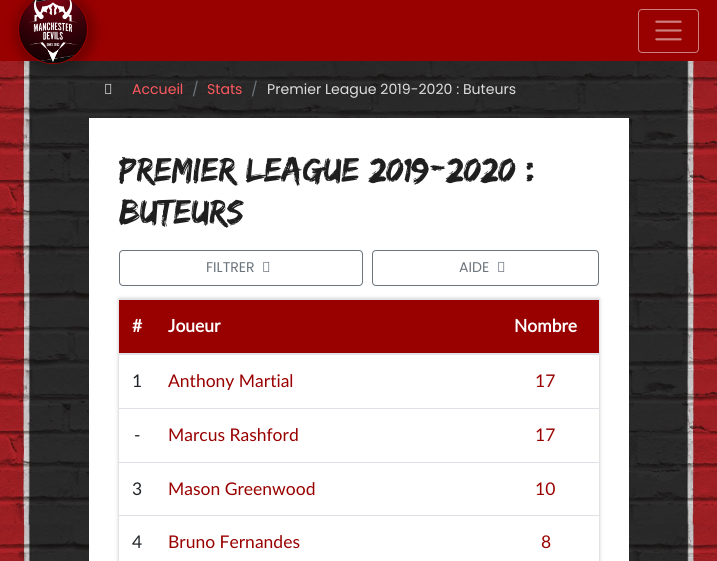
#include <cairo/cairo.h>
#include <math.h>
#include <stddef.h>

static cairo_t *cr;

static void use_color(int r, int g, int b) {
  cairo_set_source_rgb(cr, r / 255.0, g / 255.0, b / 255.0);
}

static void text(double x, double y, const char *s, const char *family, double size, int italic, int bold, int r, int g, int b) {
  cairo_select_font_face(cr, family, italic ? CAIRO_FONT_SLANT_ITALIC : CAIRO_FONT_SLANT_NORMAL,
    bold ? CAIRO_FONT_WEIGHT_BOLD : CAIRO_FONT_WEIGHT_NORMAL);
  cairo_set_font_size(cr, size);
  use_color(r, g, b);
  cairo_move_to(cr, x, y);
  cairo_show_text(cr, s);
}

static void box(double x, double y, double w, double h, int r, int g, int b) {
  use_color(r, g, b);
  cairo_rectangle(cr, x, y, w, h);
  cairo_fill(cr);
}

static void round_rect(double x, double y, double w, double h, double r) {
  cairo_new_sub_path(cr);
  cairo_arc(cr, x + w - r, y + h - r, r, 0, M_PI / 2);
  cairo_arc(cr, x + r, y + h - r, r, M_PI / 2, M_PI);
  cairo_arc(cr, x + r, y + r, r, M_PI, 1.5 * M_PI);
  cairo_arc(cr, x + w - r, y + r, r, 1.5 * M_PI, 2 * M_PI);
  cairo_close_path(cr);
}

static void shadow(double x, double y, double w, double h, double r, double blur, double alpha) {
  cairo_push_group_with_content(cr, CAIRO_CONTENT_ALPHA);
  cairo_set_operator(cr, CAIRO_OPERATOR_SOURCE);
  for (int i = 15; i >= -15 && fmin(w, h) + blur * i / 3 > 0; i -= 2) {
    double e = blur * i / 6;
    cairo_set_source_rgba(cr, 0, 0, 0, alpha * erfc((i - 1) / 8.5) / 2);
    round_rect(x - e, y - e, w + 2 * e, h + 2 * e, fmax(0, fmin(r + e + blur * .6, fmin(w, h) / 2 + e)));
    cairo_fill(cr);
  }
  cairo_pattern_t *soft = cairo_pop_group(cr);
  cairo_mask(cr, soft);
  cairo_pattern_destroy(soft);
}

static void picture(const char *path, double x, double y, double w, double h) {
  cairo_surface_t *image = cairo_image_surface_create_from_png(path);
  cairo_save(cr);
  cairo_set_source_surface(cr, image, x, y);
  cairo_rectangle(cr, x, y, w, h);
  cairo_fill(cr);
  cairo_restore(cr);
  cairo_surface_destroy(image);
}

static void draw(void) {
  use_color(255, 255, 255);
  cairo_paint(cr);
  picture("img_01.png", 0, 61, 717, 500);
  box(0, 0, 717, 61, 153, 0, 0);
  picture("img_04.png", 105, 83, 7, 11);
  use_color(0, 0, 0);
  shadow(15, -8, 80, 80, 40, 5, 0.25);
  cairo_arc(cr, 53, 29, 34.5, 0, 2 * M_PI);
  use_color(153, 0, 0);
  cairo_set_line_width(cr, 1);
  cairo_stroke(cr);
  picture("img_02.png", 19, 0, 68, 63);
  round_rect(638.5, 9.5, 60, 43, 3.5);
  use_color(204, 128, 128);
  cairo_stroke(cr);
  picture("img_03.png", 655, 20, 27, 21);
  box(89, 118, 540, 443, 255, 255, 255);
  round_rect(119.5, 250.5, 243, 35, 3.5);
  use_color(108, 117, 125);
  cairo_stroke(cr);
  picture("img_05.png", 263, 261, 7, 11);
  round_rect(372.5, 250.5, 226, 35, 3.5);
  cairo_stroke(cr);
  picture("img_05.png", 498, 261, 7, 11);
  cairo_save(cr);
  cairo_set_fill_rule(cr, CAIRO_FILL_RULE_EVEN_ODD);
  cairo_new_path(cr);
  cairo_move_to(cr, 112, 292);
  cairo_line_to(cr, 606, 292);
  cairo_line_to(cr, 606, 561);
  cairo_line_to(cr, 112, 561);
  cairo_close_path(cr);
  cairo_move_to(cr, 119, 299);
  cairo_line_to(cr, 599, 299);
  cairo_line_to(cr, 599, 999);
  cairo_line_to(cr, 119, 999);
  cairo_close_path(cr);
  cairo_clip(cr);
  use_color(187, 187, 187);
  shadow(119, 299, 480, 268, 0, 2, 1);
  cairo_restore(cr);
  box(119, 300, 480, 53, 153, 0, 0);
  box(119, 299, 480, 1, 222, 226, 230);
  box(119, 353, 480, 2, 222, 226, 230);
  box(119, 408, 480, 1, 222, 226, 230);
  box(119, 462, 480, 1, 222, 226, 230);
  box(119, 515, 480, 1, 222, 226, 230);
  text(132, 94, "Accueil", "Poppins", 14.1, 0, 0, 255, 89, 95);
  text(192, 94, "/", "Poppins", 14.1, 0, 0, 108, 117, 125);
  text(207, 94, "Stats", "Poppins", 14.1, 0, 0, 255, 89, 95);
  text(251, 94, "/", "Poppins", 14.1, 0, 0, 108, 117, 125);
  text(267, 94, "Premier League 2019-2020 : Buteurs", "Poppins", 14.1, 0, 0, 221, 221, 221);
  text(119, 181, "PREMIER LEAGUE 2019-2020 :", "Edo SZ", 35.25, 0, 0, 31, 31, 31);
  text(119, 223, "BUTEURS", "Edo SZ", 35.25, 0, 0, 31, 31, 31);
  text(206, 272, "FILTRER", "Poppins", 14.1, 0, 0, 108, 117, 125);
  text(459, 272, "AIDE", "Poppins", 14.1, 0, 0, 108, 117, 125);
  text(132, 332, "#", "Lato", 17.5, 0, 1, 255, 255, 255);
  text(168, 332, "Joueur", "Lato", 17.5, 0, 1, 255, 255, 255);
  text(514, 332, "Nombre", "Lato", 17.5, 0, 1, 255, 255, 255);
  text(132, 387, "1", "Lato", 17.5, 0, 0, 33, 37, 41);
  text(168, 387, "Anthony Martial", "Lato", 17.5, 0, 0, 153, 0, 0);
  text(535, 387, "17", "Lato", 17.5, 0, 0, 153, 0, 0);
  text(134, 441, "-", "Lato", 17.5, 0, 0, 33, 37, 41);
  text(168, 441, "Marcus Rashford", "Lato", 17.5, 0, 0, 153, 0, 0);
  text(535, 441, "17", "Lato", 17.5, 0, 0, 153, 0, 0);
  text(132, 495, "3", "Lato", 17.5, 0, 0, 33, 37, 41);
  text(168, 495, "Mason Greenwood", "Lato", 17.5, 0, 0, 153, 0, 0);
  text(535, 495, "10", "Lato", 17.5, 0, 0, 153, 0, 0);
  text(132, 548, "4", "Lato", 17.5, 0, 0, 33, 37, 41);
  text(168, 548, "Bruno Fernandes", "Lato", 17.5, 0, 0, 153, 0, 0);
  text(541, 548, "8", "Lato", 17.5, 0, 0, 153, 0, 0);
}

int main(void) {
  cairo_surface_t *surface = cairo_image_surface_create(CAIRO_FORMAT_RGB24, 717, 561);
  cr = cairo_create(surface);
  cairo_font_options_t *options = cairo_font_options_create();
  cairo_font_options_set_hint_metrics(options, CAIRO_HINT_METRICS_OFF);
  cairo_font_options_set_hint_style(options, CAIRO_HINT_STYLE_NONE);
  cairo_set_font_options(cr, options);
  cairo_set_miter_limit(cr, 4);
  draw();
  cairo_surface_write_to_png(surface, "out.png");
  cairo_font_options_destroy(options);
  cairo_destroy(cr);
  cairo_surface_destroy(surface);
  return 0;
}
